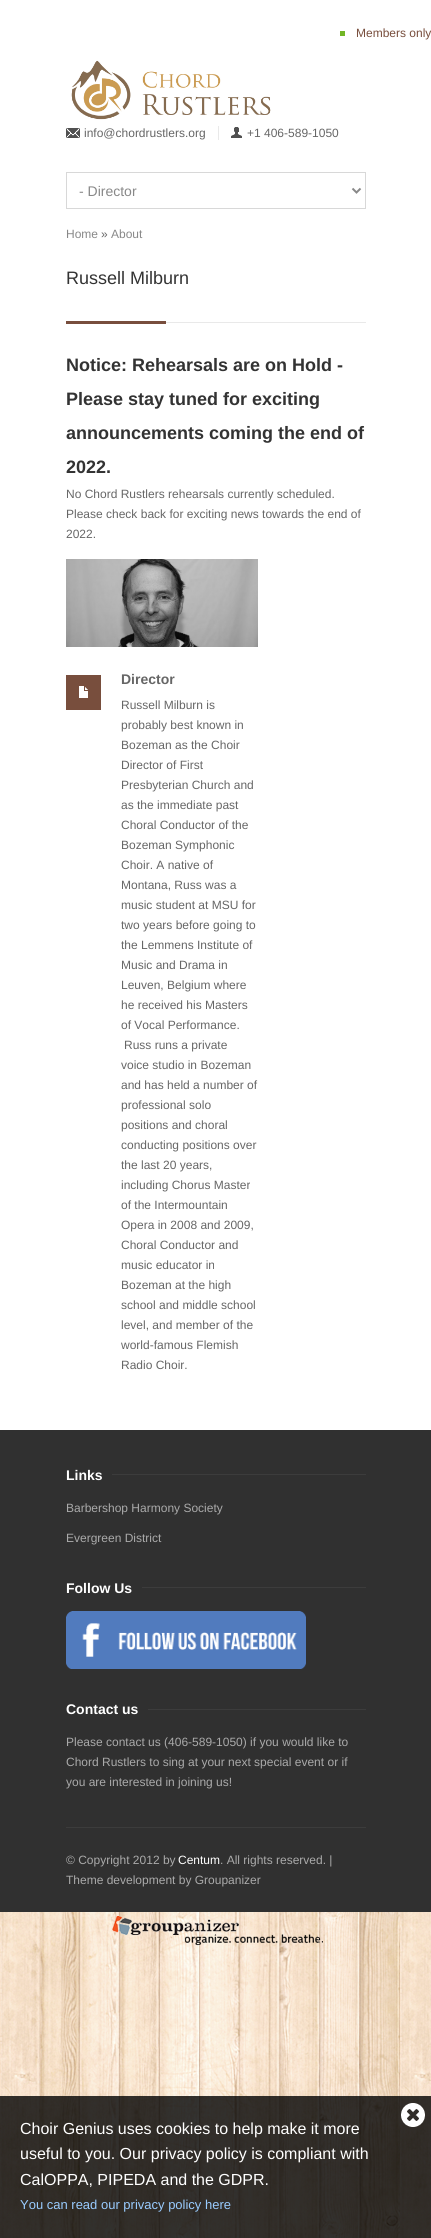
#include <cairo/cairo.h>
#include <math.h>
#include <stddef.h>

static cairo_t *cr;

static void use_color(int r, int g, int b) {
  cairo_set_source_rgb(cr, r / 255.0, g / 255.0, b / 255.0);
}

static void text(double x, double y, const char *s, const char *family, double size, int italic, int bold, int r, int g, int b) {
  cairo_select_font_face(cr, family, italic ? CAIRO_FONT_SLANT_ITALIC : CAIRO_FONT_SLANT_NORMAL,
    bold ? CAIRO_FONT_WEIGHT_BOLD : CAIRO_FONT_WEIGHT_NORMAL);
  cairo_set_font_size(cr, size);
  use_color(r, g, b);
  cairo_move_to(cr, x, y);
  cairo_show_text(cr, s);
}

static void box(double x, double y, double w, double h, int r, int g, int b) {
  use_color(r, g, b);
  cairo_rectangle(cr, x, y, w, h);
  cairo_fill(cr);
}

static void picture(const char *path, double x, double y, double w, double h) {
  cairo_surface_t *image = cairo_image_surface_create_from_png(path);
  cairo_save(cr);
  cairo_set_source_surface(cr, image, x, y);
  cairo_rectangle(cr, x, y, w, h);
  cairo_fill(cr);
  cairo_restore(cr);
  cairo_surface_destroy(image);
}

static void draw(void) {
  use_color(255, 255, 255);
  cairo_paint(cr);
  picture("img_01.png", 0, 1912, 431, 326);
  box(340, 31, 5, 5, 114, 182, 38);
  picture("img_02.png", 71, 60, 200, 60);
  picture("img_03.png", 66, 128, 14, 10);
  box(218, 126, 1, 14, 233, 233, 233);
  picture("img_04.png", 231, 127, 11, 11);
  cairo_rectangle(cr, 66.5, 172.5, 299, 36);
  use_color(216, 216, 216);
  cairo_set_line_width(cr, 1);
  cairo_stroke(cr);
  cairo_new_path(cr);
  cairo_move_to(cr, 352.5, 188.5);
  cairo_line_to(cr, 356.5, 192.5);
  cairo_line_to(cr, 360.5, 188.5);
  use_color(136, 136, 136);
  cairo_set_line_width(cr, 2);
  cairo_stroke(cr);
  box(166, 322, 200, 1, 233, 233, 233);
  box(66, 321, 100, 3, 120, 78, 61);
  picture("img_05.png", 66, 559, 192, 88);
  box(66, 675, 35, 35, 120, 78, 61);
  picture("img_06.png", 79, 686, 9, 12);
  box(0, 1430, 431, 482, 48, 48, 48);
  box(112, 1474, 254, 1, 60, 60, 60);
  box(142, 1587, 224, 1, 60, 60, 60);
  picture("img_07.png", 66, 1611, 240, 58);
  box(148, 1709, 218, 1, 60, 60, 60);
  box(66, 1827, 300, 1, 60, 60, 60);
  picture("img_08.png", 112, 1915, 211, 31);
  cairo_set_source_rgba(cr, 0, 0, 0, 0.8);
  cairo_rectangle(cr, 0, 2096, 431, 142);
  cairo_fill(cr);
  picture("img_09.png", 401, 2103, 24, 24);
  text(356, 37, "Members only", "Liberation Sans", 12, 0, 0, 120, 78, 61);
  text(84, 137, "info@chordrustlers.org", "Liberation Sans", 12, 0, 0, 102, 102, 102);
  text(247, 137, "+1 406-589-1050", "Liberation Sans", 12, 0, 0, 102, 102, 102);
  text(79, 196, "- Director", "Liberation Sans", 14, 0, 0, 136, 136, 136);
  text(66, 238, "Home", "Liberation Sans", 12, 0, 0, 136, 136, 136);
  text(101, 238, "»", "Liberation Sans", 12, 0, 0, 102, 102, 102);
  text(111, 238, "About", "Liberation Sans", 12, 0, 0, 136, 136, 136);
  text(66, 284, "Russell Milburn", "Liberation Sans", 18, 0, 0, 51, 51, 51);
  text(66, 371, "Notice: Rehearsals are on Hold -", "Liberation Sans", 18, 0, 1, 51, 51, 51);
  text(66, 405, "Please stay tuned for exciting", "Liberation Sans", 18, 0, 1, 51, 51, 51);
  text(66, 439, "announcements coming the end of", "Liberation Sans", 18, 0, 1, 51, 51, 51);
  text(66, 473, "2022.", "Liberation Sans", 18, 0, 1, 51, 51, 51);
  text(66, 498, "No Chord Rustlers rehearsals currently scheduled.", "Liberation Sans", 12, 0, 0, 102, 102, 102);
  text(66, 518, "Please check back for exciting news towards the end of", "Liberation Sans", 12, 0, 0, 102, 102, 102);
  text(66, 538, "2022.", "Liberation Sans", 12, 0, 0, 102, 102, 102);
  text(121, 684, "Director", "Liberation Sans", 14, 0, 1, 102, 102, 102);
  text(121, 709, "Russell Milburn is", "Liberation Sans", 12, 0, 0, 102, 102, 102);
  text(121, 729, "probably best known in", "Liberation Sans", 12, 0, 0, 102, 102, 102);
  text(121, 749, "Bozeman as the Choir", "Liberation Sans", 12, 0, 0, 102, 102, 102);
  text(121, 769, "Director of First", "Liberation Sans", 12, 0, 0, 102, 102, 102);
  text(121, 789, "Presbyterian Church and", "Liberation Sans", 12, 0, 0, 102, 102, 102);
  text(121, 809, "as the immediate past", "Liberation Sans", 12, 0, 0, 102, 102, 102);
  text(121, 829, "Choral Conductor of the", "Liberation Sans", 12, 0, 0, 102, 102, 102);
  text(121, 849, "Bozeman Symphonic", "Liberation Sans", 12, 0, 0, 102, 102, 102);
  text(121, 869, "Choir. A native of", "Liberation Sans", 12, 0, 0, 102, 102, 102);
  text(121, 889, "Montana, Russ was a", "Liberation Sans", 12, 0, 0, 102, 102, 102);
  text(121, 909, "music student at MSU for", "Liberation Sans", 12, 0, 0, 102, 102, 102);
  text(121, 929, "two years before going to", "Liberation Sans", 12, 0, 0, 102, 102, 102);
  text(121, 949, "the Lemmens Institute of", "Liberation Sans", 12, 0, 0, 102, 102, 102);
  text(121, 969, "Music and Drama in", "Liberation Sans", 12, 0, 0, 102, 102, 102);
  text(121, 989, "Leuven, Belgium where", "Liberation Sans", 12, 0, 0, 102, 102, 102);
  text(121, 1009, "he received his Masters", "Liberation Sans", 12, 0, 0, 102, 102, 102);
  text(121, 1029, "of Vocal Performance.", "Liberation Sans", 12, 0, 0, 102, 102, 102);
  text(124, 1049, "Russ runs a private", "Liberation Sans", 12, 0, 0, 102, 102, 102);
  text(121, 1069, "voice studio in Bozeman", "Liberation Sans", 12, 0, 0, 102, 102, 102);
  text(121, 1089, "and has held a number of", "Liberation Sans", 12, 0, 0, 102, 102, 102);
  text(121, 1109, "professional solo", "Liberation Sans", 12, 0, 0, 102, 102, 102);
  text(121, 1129, "positions and choral", "Liberation Sans", 12, 0, 0, 102, 102, 102);
  text(121, 1149, "conducting positions over", "Liberation Sans", 12, 0, 0, 102, 102, 102);
  text(121, 1169, "the last 20 years,", "Liberation Sans", 12, 0, 0, 102, 102, 102);
  text(121, 1189, "including Chorus Master", "Liberation Sans", 12, 0, 0, 102, 102, 102);
  text(121, 1209, "of the Intermountain", "Liberation Sans", 12, 0, 0, 102, 102, 102);
  text(121, 1229, "Opera in 2008 and 2009,", "Liberation Sans", 12, 0, 0, 102, 102, 102);
  text(121, 1249, "Choral Conductor and", "Liberation Sans", 12, 0, 0, 102, 102, 102);
  text(121, 1269, "music educator in", "Liberation Sans", 12, 0, 0, 102, 102, 102);
  text(121, 1289, "Bozeman at the high", "Liberation Sans", 12, 0, 0, 102, 102, 102);
  text(121, 1309, "school and middle school", "Liberation Sans", 12, 0, 0, 102, 102, 102);
  text(121, 1329, "level, and member of the", "Liberation Sans", 12, 0, 0, 102, 102, 102);
  text(121, 1349, "world-famous Flemish", "Liberation Sans", 12, 0, 0, 102, 102, 102);
  text(121, 1369, "Radio Choir.", "Liberation Sans", 12, 0, 0, 102, 102, 102);
  text(66, 1480, "Links", "Liberation Sans", 14, 0, 1, 255, 255, 255);
  text(66, 1512, "Barbershop Harmony Society", "Liberation Sans", 12, 0, 0, 170, 170, 170);
  text(66, 1542, "Evergreen District", "Liberation Sans", 12, 0, 0, 170, 170, 170);
  text(66, 1593, "Follow Us", "Liberation Sans", 14, 0, 1, 255, 255, 255);
  text(66, 1714, "Contact us", "Liberation Sans", 14, 0, 1, 255, 255, 255);
  text(66, 1746, "Please contact us (406-589-1050) if you would like to", "Liberation Sans", 12, 0, 0, 170, 170, 170);
  text(66, 1766, "Chord Rustlers to sing at your next special event or if", "Liberation Sans", 12, 0, 0, 170, 170, 170);
  text(66, 1786, "you are interested in joining us!", "Liberation Sans", 12, 0, 0, 170, 170, 170);
  text(66, 1864, "© Copyright 2012 by", "Liberation Sans", 12, 0, 0, 170, 170, 170);
  text(178, 1864, "Centum", "Liberation Sans", 12, 0, 0, 255, 255, 255);
  text(220, 1864, ". All rights reserved. |", "Liberation Sans", 12, 0, 0, 170, 170, 170);
  text(66, 1884, "Theme development by Groupanizer", "Liberation Sans", 12, 0, 0, 170, 170, 170);
  text(20, 2134, "Choir Genius uses cookies to help make it more", "Liberation Sans", 16, 0, 0, 255, 255, 255);
  text(20, 2159, "useful to you. Our privacy policy is compliant with", "Liberation Sans", 16, 0, 0, 255, 255, 255);
  text(20, 2185, "CalOPPA, PIPEDA and the GDPR.", "Liberation Sans", 16, 0, 0, 255, 255, 255);
  text(20, 2209, "You can read our privacy policy here", "Liberation Sans", 13, 0, 0, 153, 204, 255);
}

int main(void) {
  cairo_surface_t *surface = cairo_image_surface_create(CAIRO_FORMAT_RGB24, 431, 2238);
  cr = cairo_create(surface);
  cairo_font_options_t *options = cairo_font_options_create();
  cairo_font_options_set_hint_metrics(options, CAIRO_HINT_METRICS_OFF);
  cairo_font_options_set_hint_style(options, CAIRO_HINT_STYLE_NONE);
  cairo_set_font_options(cr, options);
  cairo_set_miter_limit(cr, 4);
  draw();
  cairo_surface_write_to_png(surface, "out.png");
  cairo_font_options_destroy(options);
  cairo_destroy(cr);
  cairo_surface_destroy(surface);
  return 0;
}
